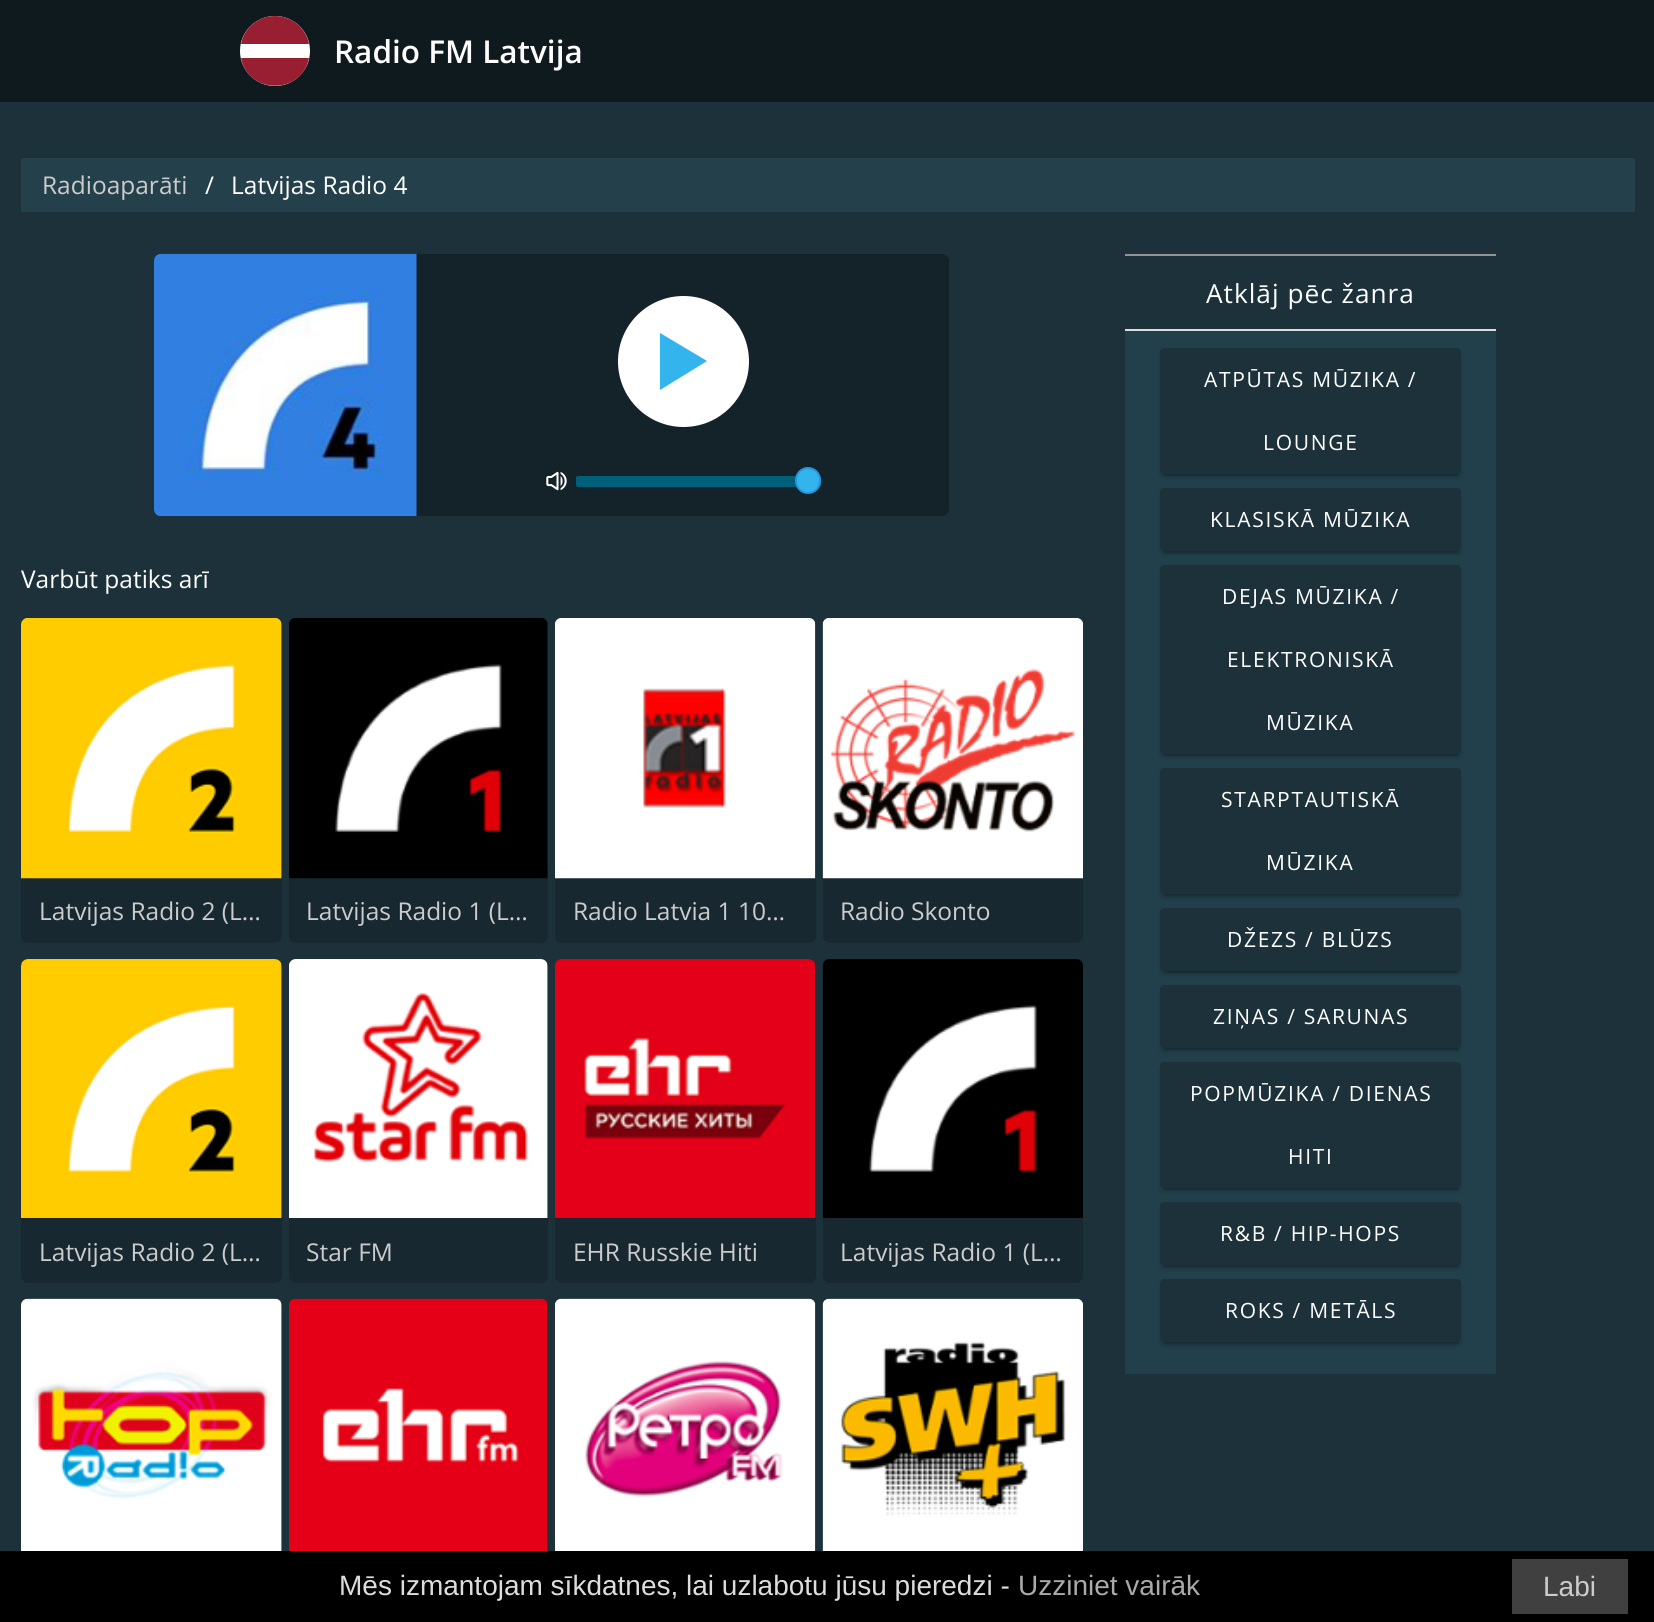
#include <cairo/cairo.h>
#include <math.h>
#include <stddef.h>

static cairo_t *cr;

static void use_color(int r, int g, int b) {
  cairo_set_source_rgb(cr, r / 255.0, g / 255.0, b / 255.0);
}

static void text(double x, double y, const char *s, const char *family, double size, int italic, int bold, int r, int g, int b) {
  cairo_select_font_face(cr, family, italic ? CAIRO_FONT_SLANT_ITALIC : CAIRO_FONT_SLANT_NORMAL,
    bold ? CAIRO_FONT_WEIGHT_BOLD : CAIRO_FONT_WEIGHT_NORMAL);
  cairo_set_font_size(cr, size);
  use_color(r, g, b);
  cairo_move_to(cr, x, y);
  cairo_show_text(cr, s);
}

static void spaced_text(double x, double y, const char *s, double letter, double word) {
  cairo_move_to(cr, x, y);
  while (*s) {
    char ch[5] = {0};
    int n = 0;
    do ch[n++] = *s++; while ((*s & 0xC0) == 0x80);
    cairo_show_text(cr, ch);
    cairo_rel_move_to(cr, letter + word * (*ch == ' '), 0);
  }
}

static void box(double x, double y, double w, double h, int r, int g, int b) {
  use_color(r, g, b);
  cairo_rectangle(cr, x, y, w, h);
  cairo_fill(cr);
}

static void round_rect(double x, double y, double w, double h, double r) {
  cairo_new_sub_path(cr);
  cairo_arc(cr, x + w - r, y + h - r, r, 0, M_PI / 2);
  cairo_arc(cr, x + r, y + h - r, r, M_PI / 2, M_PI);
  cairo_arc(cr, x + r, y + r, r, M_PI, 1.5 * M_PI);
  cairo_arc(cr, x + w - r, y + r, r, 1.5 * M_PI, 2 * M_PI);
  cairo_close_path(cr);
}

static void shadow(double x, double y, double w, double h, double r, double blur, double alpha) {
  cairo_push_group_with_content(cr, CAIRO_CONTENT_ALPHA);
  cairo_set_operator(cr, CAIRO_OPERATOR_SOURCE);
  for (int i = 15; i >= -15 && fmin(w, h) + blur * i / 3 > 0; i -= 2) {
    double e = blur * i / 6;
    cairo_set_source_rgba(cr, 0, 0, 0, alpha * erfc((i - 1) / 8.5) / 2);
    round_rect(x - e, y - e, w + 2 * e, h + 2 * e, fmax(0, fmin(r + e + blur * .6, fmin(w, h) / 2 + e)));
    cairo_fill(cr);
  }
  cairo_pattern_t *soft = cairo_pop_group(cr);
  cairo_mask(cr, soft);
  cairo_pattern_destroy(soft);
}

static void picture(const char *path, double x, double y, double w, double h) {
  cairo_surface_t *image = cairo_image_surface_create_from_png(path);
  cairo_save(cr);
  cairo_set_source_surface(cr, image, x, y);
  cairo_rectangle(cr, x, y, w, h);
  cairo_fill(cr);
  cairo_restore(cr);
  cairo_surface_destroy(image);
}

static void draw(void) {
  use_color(28, 49, 58);
  cairo_paint(cr);
  box(0, 0, 1654, 102, 15, 26, 30);
  use_color(255, 255, 255);
  cairo_arc(cr, 275, 51, 35, 0, 2 * M_PI);
  cairo_fill(cr);
  use_color(152, 30, 50);
  cairo_set_fill_rule(cr, CAIRO_FILL_RULE_EVEN_ODD);
  cairo_new_path(cr);
  cairo_move_to(cr, 309, 58);
  cairo_curve_to(cr, 302, 95, 248, 95, 241, 58);
  cairo_close_path(cr);
  cairo_move_to(cr, 275, 16);
  cairo_curve_to(cr, 292, 16, 306, 28, 309, 44);
  cairo_line_to(cr, 241, 44);
  cairo_curve_to(cr, 244, 28, 258, 16, 275, 16);
  cairo_close_path(cr);
  cairo_fill(cr);
  box(21, 158, 1614, 54, 36, 64, 75);
  use_color(20, 34, 41);
  round_rect(154, 254, 795, 262, 7);
  cairo_fill(cr);
  picture("img_01.png", 154, 253, 263, 264);
  use_color(255, 255, 255);
  cairo_arc(cr, 683.5, 361.5, 65.5, 0, 2 * M_PI);
  cairo_fill(cr);
  use_color(51, 180, 236);
  cairo_set_fill_rule(cr, CAIRO_FILL_RULE_WINDING);
  cairo_new_path(cr);
  cairo_move_to(cr, 660, 333);
  cairo_line_to(cr, 660, 390);
  cairo_line_to(cr, 707, 361);
  cairo_close_path(cr);
  cairo_fill(cr);
  picture("img_02.png", 546, 471, 21, 20);
  use_color(0, 95, 121);
  round_rect(576, 476, 245, 11, 2);
  cairo_fill(cr);
  use_color(51, 180, 236);
  round_rect(796, 468, 24, 25, 12);
  cairo_fill_preserve(cr);
  use_color(36, 151, 227);
  cairo_stroke(cr);
  use_color(23, 40, 48);
  round_rect(21, 618, 261, 325, 7);
  cairo_fill(cr);
  picture("img_03.png", 21, 618, 261, 261);
  round_rect(289, 618, 259, 325, 7);
  cairo_fill(cr);
  picture("img_04.png", 289, 618, 259, 261);
  round_rect(555, 618, 261, 325, 7);
  cairo_fill(cr);
  picture("img_05.png", 555, 618, 261, 261);
  round_rect(823, 618, 260, 325, 7);
  cairo_fill(cr);
  picture("img_06.png", 822, 618, 261, 261);
  round_rect(21, 959, 261, 324, 7);
  cairo_fill(cr);
  picture("img_07.png", 21, 959, 261, 259);
  round_rect(289, 959, 259, 324, 7);
  cairo_fill(cr);
  picture("img_08.png", 289, 959, 259, 259);
  round_rect(555, 959, 261, 324, 7);
  cairo_fill(cr);
  picture("img_09.png", 555, 959, 261, 259);
  round_rect(823, 959, 260, 324, 7);
  cairo_fill(cr);
  picture("img_10.png", 822, 959, 261, 259);
  round_rect(21, 1299, 261, 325, 7);
  cairo_fill(cr);
  picture("img_11.png", 21, 1298, 261, 253);
  round_rect(289, 1299, 259, 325, 7);
  cairo_fill(cr);
  picture("img_12.png", 289, 1298, 259, 253);
  round_rect(555, 1299, 261, 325, 7);
  cairo_fill(cr);
  picture("img_13.png", 555, 1298, 261, 253);
  picture("img_14.png", 822, 1298, 261, 253);
  box(1125, 254, 371, 2, 147, 147, 147);
  box(1125, 329, 371, 2, 221, 221, 221);
  box(1125, 331, 371, 1043, 33, 64, 75);
  use_color(0, 0, 0);
  shadow(1160, 352, 301, 126, 4, 2, 0.14);
  shadow(1164, 357, 294, 119, 0, 1, 0.2);
  use_color(28, 49, 58);
  round_rect(1160, 348, 301, 126, 4);
  cairo_fill(cr);
  use_color(0, 0, 0);
  shadow(1160, 492, 301, 63, 4, 2, 0.14);
  shadow(1164, 497, 294, 56, 0, 1, 0.2);
  use_color(28, 49, 58);
  round_rect(1160, 488, 301, 63, 4);
  cairo_fill(cr);
  use_color(0, 0, 0);
  shadow(1160, 569, 301, 189, 4, 2, 0.14);
  shadow(1164, 574, 294, 182, 0, 1, 0.2);
  use_color(28, 49, 58);
  round_rect(1160, 565, 301, 189, 4);
  cairo_fill(cr);
  use_color(0, 0, 0);
  shadow(1160, 772, 301, 126, 4, 2, 0.14);
  shadow(1164, 777, 294, 119, 0, 1, 0.2);
  use_color(28, 49, 58);
  round_rect(1160, 768, 301, 126, 4);
  cairo_fill(cr);
  use_color(0, 0, 0);
  shadow(1160, 912, 301, 63, 4, 2, 0.14);
  shadow(1164, 917, 294, 56, 0, 1, 0.2);
  use_color(28, 49, 58);
  round_rect(1160, 908, 301, 63, 4);
  cairo_fill(cr);
  use_color(0, 0, 0);
  shadow(1160, 989, 301, 63, 4, 2, 0.14);
  shadow(1164, 994, 294, 56, 0, 1, 0.2);
  use_color(28, 49, 58);
  round_rect(1160, 985, 301, 63, 4);
  cairo_fill(cr);
  use_color(0, 0, 0);
  shadow(1160, 1066, 301, 126, 4, 2, 0.14);
  shadow(1164, 1071, 294, 119, 0, 1, 0.2);
  use_color(28, 49, 58);
  round_rect(1160, 1062, 301, 126, 4);
  cairo_fill(cr);
  use_color(0, 0, 0);
  shadow(1160, 1206, 301, 63, 4, 2, 0.14);
  shadow(1164, 1211, 294, 56, 0, 1, 0.2);
  use_color(28, 49, 58);
  round_rect(1160, 1202, 301, 63, 4);
  cairo_fill(cr);
  use_color(0, 0, 0);
  shadow(1160, 1283, 301, 63, 4, 2, 0.14);
  shadow(1164, 1288, 294, 56, 0, 1, 0.2);
  use_color(28, 49, 58);
  round_rect(1160, 1279, 301, 63, 4);
  cairo_fill(cr);
  box(0, 1551, 1654, 71, 0, 0, 0);
  box(1512, 1559, 116, 55, 64, 64, 64);
  text(334, 63, "Radio FM Latvija", "Open Sans SemiBold", 31.5, 0, 0, 255, 255, 255);
  text(42, 194, "Radioaparāti", "Open Sans", 24.5, 0, 0, 204, 204, 204);
  text(205, 194, "/", "Open Sans", 24.5, 0, 0, 255, 255, 255);
  text(231, 194, "Latvijas Radio 4", "Open Sans", 24.5, 0, 0, 255, 255, 255);
  text(21, 588, "Varbūt patiks arī", "Open Sans", 24.5, 0, 0, 255, 255, 255);
  text(39, 920, "Latvijas Radio 2 (L…", "Open Sans", 24.5, 0, 0, 204, 204, 204);
  text(306, 920, "Latvijas Radio 1 (L…", "Open Sans", 24.5, 0, 0, 204, 204, 204);
  text(573, 920, "Radio Latvia 1 10…", "Open Sans", 24.5, 0, 0, 204, 204, 204);
  text(840, 920, "Radio Skonto", "Open Sans", 24.5, 0, 0, 204, 204, 204);
  text(39, 1261, "Latvijas Radio 2 (L…", "Open Sans", 24.5, 0, 0, 204, 204, 204);
  text(306, 1261, "Star FM", "Open Sans", 24.5, 0, 0, 204, 204, 204);
  text(573, 1261, "EHR Russkie Hiti", "Open Sans", 24.5, 0, 0, 204, 204, 204);
  text(840, 1261, "Latvijas Radio 1 (L…", "Open Sans", 24.5, 0, 0, 204, 204, 204);
  cairo_set_font_size(cr, 26.25);
  use_color(255, 255, 255);
  spaced_text(1206, 303, "Atklāj pēc žanra", 1, 0);
  cairo_set_font_size(cr, 21);
  spaced_text(1204, 387, "ATPŪTAS MŪZIKA /", 1.7, 0);
  spaced_text(1263, 450, "LOUNGE", 1.7, 0);
  spaced_text(1210, 527, "KLASISKĀ MŪZIKA", 1.7, 0);
  spaced_text(1222, 604, "DEJAS MŪZIKA /", 1.7, 0);
  spaced_text(1227, 667, "ELEKTRONISKĀ", 1.7, 0);
  spaced_text(1266, 730, "MŪZIKA", 1.7, 0);
  spaced_text(1221, 807, "STARPTAUTISKĀ", 1.7, 0);
  spaced_text(1266, 870, "MŪZIKA", 1.7, 0);
  spaced_text(1227, 947, "DŽEZS / BLŪZS", 1.7, 0);
  spaced_text(1213, 1024, "ZIŅAS / SARUNAS", 1.7, 0);
  spaced_text(1190, 1101, "POPMŪZIKA / DIENAS", 1.7, 0);
  spaced_text(1288, 1164, "HITI", 1.7, 0);
  spaced_text(1220, 1241, "R&B / HIP-HOPS", 1.7, 0);
  spaced_text(1225, 1318, "ROKS / METĀLS", 1.7, 0);
  text(339, 1595, "Mēs izmantojam sīkdatnes, lai uzlabotu jūsu pieredzi -", "Liberation Sans", 28, 0, 0, 221, 221, 221);
  text(1018, 1595, "Uzziniet vairāk", "Liberation Sans", 28, 0, 0, 170, 170, 170);
  text(1543, 1596, "Labi", "Liberation Sans", 28, 0, 0, 204, 204, 204);
}

int main(void) {
  cairo_surface_t *surface = cairo_image_surface_create(CAIRO_FORMAT_RGB24, 1654, 1622);
  cr = cairo_create(surface);
  cairo_font_options_t *options = cairo_font_options_create();
  cairo_font_options_set_hint_metrics(options, CAIRO_HINT_METRICS_OFF);
  cairo_font_options_set_hint_style(options, CAIRO_HINT_STYLE_NONE);
  cairo_set_font_options(cr, options);
  cairo_set_miter_limit(cr, 4);
  draw();
  cairo_surface_write_to_png(surface, "out.png");
  cairo_font_options_destroy(options);
  cairo_destroy(cr);
  cairo_surface_destroy(surface);
  return 0;
}
